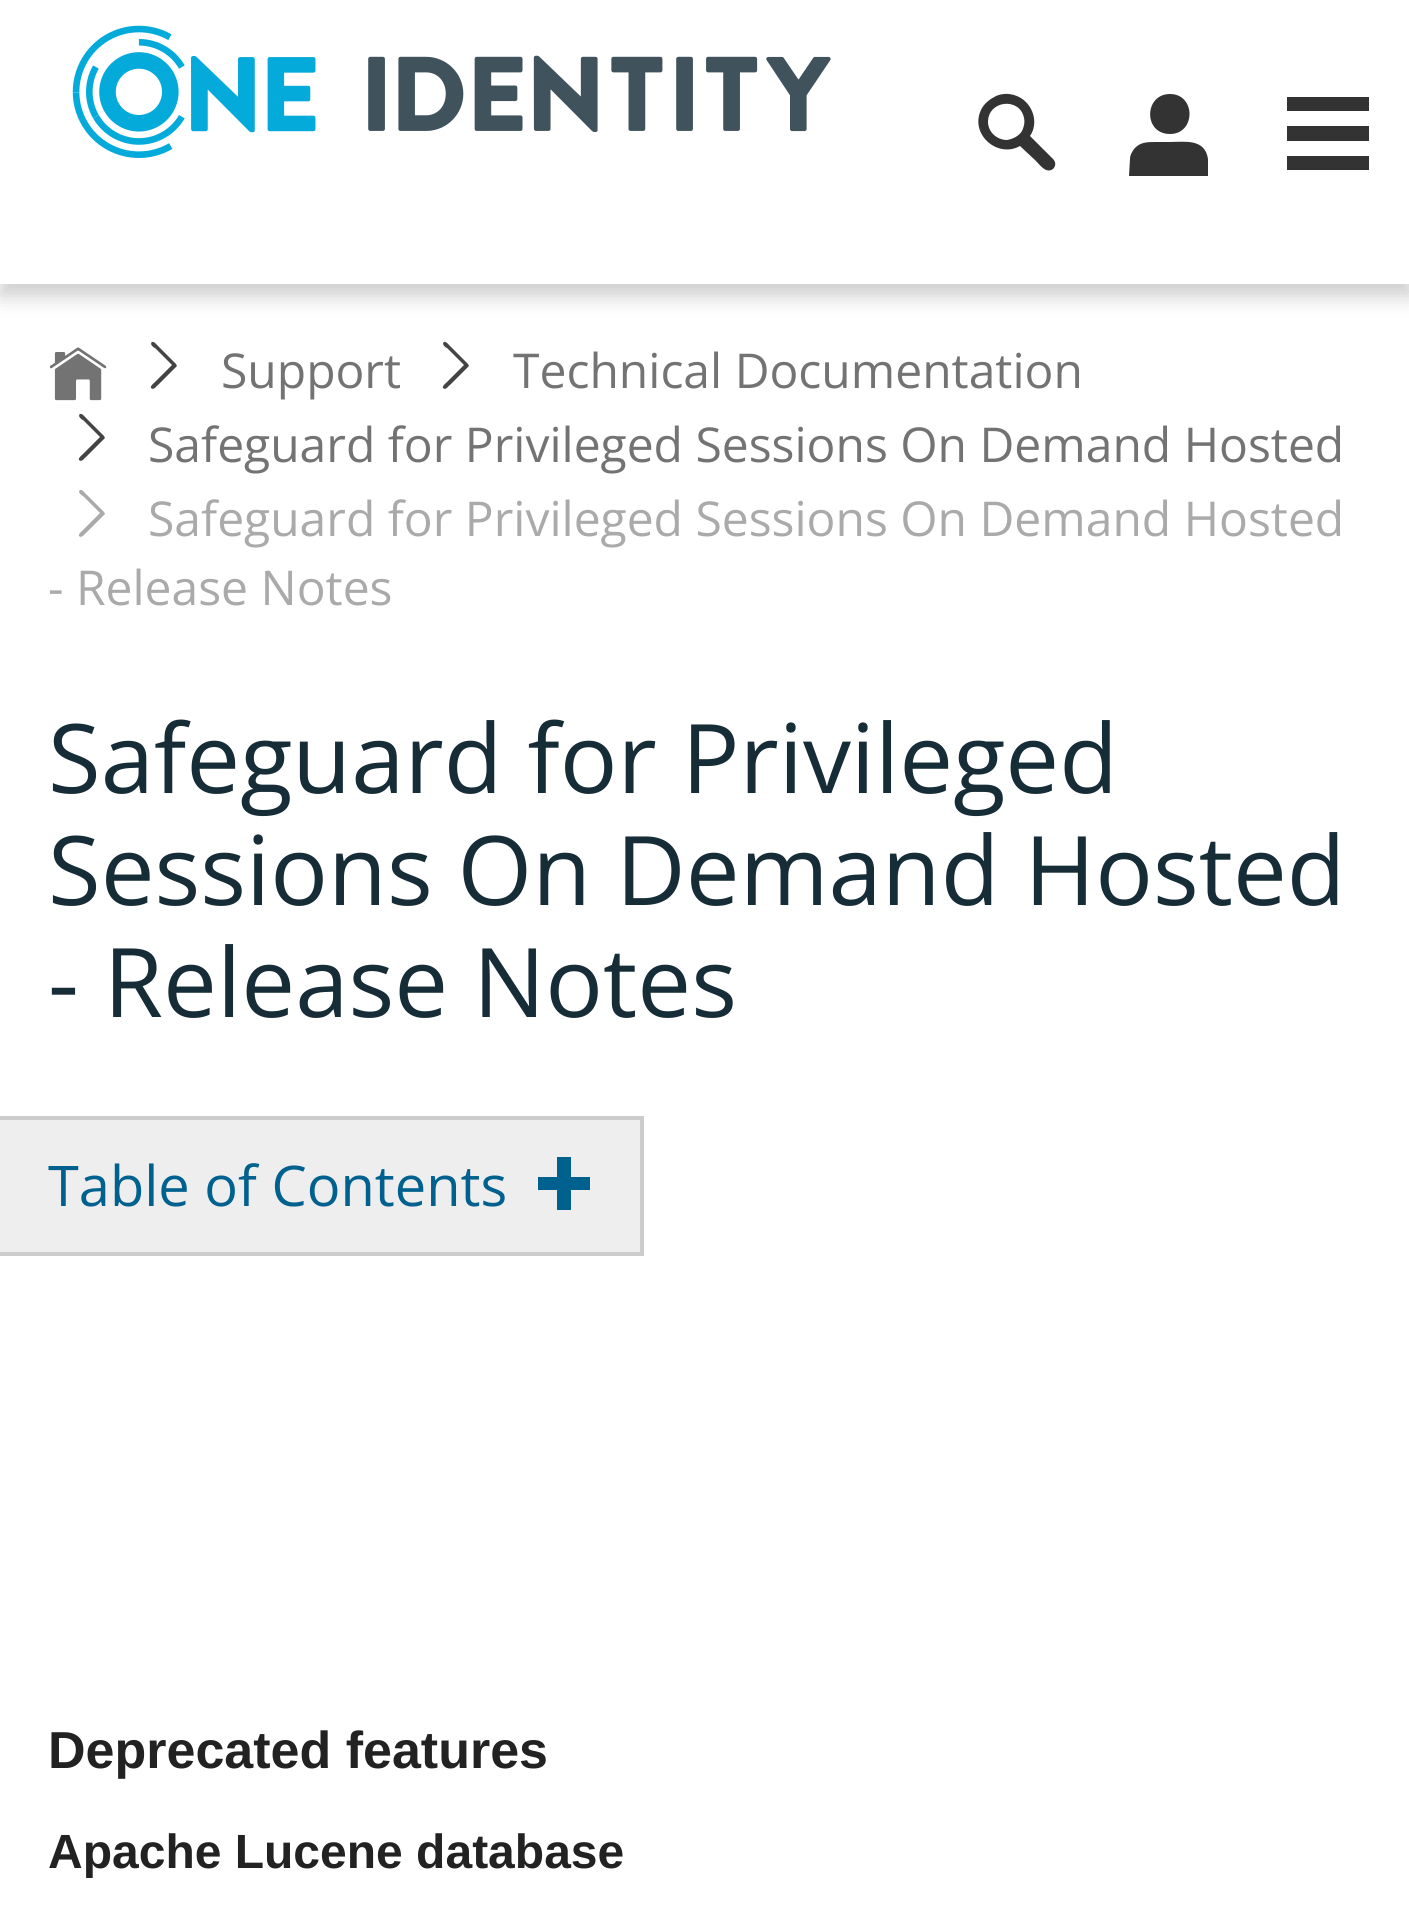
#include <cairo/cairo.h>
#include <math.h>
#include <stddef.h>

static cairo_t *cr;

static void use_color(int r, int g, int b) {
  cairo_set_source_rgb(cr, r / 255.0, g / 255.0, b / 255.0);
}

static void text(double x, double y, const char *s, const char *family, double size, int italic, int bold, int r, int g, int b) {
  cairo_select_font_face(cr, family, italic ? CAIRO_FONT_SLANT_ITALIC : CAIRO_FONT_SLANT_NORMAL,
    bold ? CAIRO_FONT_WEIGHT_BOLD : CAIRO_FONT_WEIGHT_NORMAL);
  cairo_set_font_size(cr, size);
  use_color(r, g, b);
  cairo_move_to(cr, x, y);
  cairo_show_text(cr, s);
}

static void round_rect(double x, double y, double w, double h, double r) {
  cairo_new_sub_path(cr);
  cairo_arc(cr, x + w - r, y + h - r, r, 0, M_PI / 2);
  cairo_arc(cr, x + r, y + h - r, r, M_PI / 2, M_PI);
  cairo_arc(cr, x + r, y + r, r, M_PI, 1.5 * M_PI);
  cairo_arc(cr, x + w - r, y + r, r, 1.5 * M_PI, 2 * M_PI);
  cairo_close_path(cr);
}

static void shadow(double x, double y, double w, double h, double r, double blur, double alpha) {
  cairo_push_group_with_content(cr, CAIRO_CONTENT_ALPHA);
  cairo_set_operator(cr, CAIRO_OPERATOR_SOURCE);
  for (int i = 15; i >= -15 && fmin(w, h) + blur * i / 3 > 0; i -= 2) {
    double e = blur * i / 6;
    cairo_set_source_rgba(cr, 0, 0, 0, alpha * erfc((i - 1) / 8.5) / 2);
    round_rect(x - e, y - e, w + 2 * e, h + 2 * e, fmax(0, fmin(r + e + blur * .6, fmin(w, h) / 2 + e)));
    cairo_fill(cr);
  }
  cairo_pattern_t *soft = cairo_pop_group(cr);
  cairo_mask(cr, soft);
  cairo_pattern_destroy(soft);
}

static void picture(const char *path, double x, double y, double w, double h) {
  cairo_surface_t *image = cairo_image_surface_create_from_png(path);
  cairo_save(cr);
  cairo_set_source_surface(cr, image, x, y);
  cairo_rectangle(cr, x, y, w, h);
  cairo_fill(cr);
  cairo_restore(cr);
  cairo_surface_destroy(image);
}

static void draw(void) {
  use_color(255, 255, 255);
  cairo_paint(cr);
  cairo_save(cr);
  cairo_rectangle(cr, 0, 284, 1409, 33);
  cairo_clip(cr);
  use_color(205, 205, 205);
  shadow(0, 8, 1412, 288, 0, 10, 1);
  cairo_restore(cr);
  picture("img_01.png", 72, 25, 759, 133);
  use_color(51, 51, 51);
  cairo_new_path(cr);
  cairo_move_to(cr, 1053, 159);
  cairo_line_to(cr, 1030, 136);
  cairo_curve_to(cr, 1039, 123, 1033, 104, 1019, 97);
  cairo_curve_to(cr, 1011, 93, 1003, 93, 996, 96);
  cairo_curve_to(cr, 990, 99, 985, 103, 982, 108);
  cairo_curve_to(cr, 968, 133, 997, 159, 1020, 146);
  cairo_line_to(cr, 1036, 161);
  cairo_curve_to(cr, 1040, 165, 1046, 174, 1053, 169);
  cairo_curve_to(cr, 1056, 166, 1056, 162, 1053, 159);
  cairo_close_path(cr);
  cairo_move_to(cr, 988, 122);
  cairo_curve_to(cr, 988, 100, 1020, 97, 1024, 118);
  cairo_curve_to(cr, 1025, 122, 1024, 127, 1022, 131);
  cairo_curve_to(cr, 1019, 136, 1013, 139, 1007, 140);
  cairo_curve_to(cr, 997, 140, 988, 132, 988, 122);
  cairo_close_path(cr);
  cairo_fill(cr);
  cairo_new_path(cr);
  cairo_move_to(cr, 1170, 94);
  cairo_curve_to(cr, 1196, 94, 1196, 134, 1170, 134);
  cairo_curve_to(cr, 1143, 134, 1144, 94, 1170, 94);
  cairo_close_path(cr);
  cairo_move_to(cr, 1208, 176);
  cairo_line_to(cr, 1129, 176);
  cairo_line_to(cr, 1130, 159);
  cairo_curve_to(cr, 1130, 155, 1132, 152, 1134, 149);
  cairo_curve_to(cr, 1140, 142, 1147, 142, 1156, 142);
  cairo_line_to(cr, 1169, 142);
  cairo_curve_to(cr, 1184, 142, 1205, 138, 1208, 159);
  cairo_close_path(cr);
  cairo_fill(cr);
  cairo_new_path(cr);
  cairo_move_to(cr, 1287, 97);
  cairo_line_to(cr, 1369, 97);
  cairo_line_to(cr, 1369, 111);
  cairo_line_to(cr, 1287, 111);
  cairo_close_path(cr);
  cairo_move_to(cr, 1287, 126);
  cairo_line_to(cr, 1369, 126);
  cairo_line_to(cr, 1369, 141);
  cairo_line_to(cr, 1287, 141);
  cairo_close_path(cr);
  cairo_move_to(cr, 1287, 156);
  cairo_line_to(cr, 1369, 156);
  cairo_line_to(cr, 1369, 170);
  cairo_line_to(cr, 1287, 170);
  cairo_close_path(cr);
  cairo_fill(cr);
  picture("img_02.png", 49, 347, 58, 54);
  use_color(68, 68, 68);
  cairo_new_path(cr);
  cairo_move_to(cr, 176, 364);
  cairo_line_to(cr, 158, 346);
  cairo_curve_to(cr, 157, 345, 154, 341, 152, 342);
  cairo_curve_to(cr, 149, 344, 154, 348, 155, 348);
  cairo_line_to(cr, 172, 365);
  cairo_line_to(cr, 155, 382);
  cairo_curve_to(cr, 154, 383, 150, 386, 151, 388);
  cairo_curve_to(cr, 154, 391, 157, 385, 158, 385);
  cairo_line_to(cr, 177, 366);
  cairo_close_path(cr);
  cairo_fill(cr);
  cairo_new_path(cr);
  cairo_move_to(cr, 468, 364);
  cairo_line_to(cr, 450, 346);
  cairo_curve_to(cr, 449, 345, 446, 341, 444, 342);
  cairo_curve_to(cr, 441, 344, 446, 348, 447, 348);
  cairo_line_to(cr, 464, 365);
  cairo_line_to(cr, 447, 382);
  cairo_curve_to(cr, 446, 383, 442, 386, 443, 388);
  cairo_curve_to(cr, 446, 391, 449, 385, 450, 385);
  cairo_line_to(cr, 469, 366);
  cairo_close_path(cr);
  cairo_fill(cr);
  cairo_new_path(cr);
  cairo_move_to(cr, 104, 436);
  cairo_line_to(cr, 86, 418);
  cairo_curve_to(cr, 85, 417, 82, 413, 80, 414);
  cairo_curve_to(cr, 77, 416, 82, 420, 83, 420);
  cairo_line_to(cr, 100, 437);
  cairo_line_to(cr, 83, 454);
  cairo_curve_to(cr, 82, 455, 78, 458, 79, 460);
  cairo_curve_to(cr, 82, 463, 85, 457, 86, 457);
  cairo_line_to(cr, 105, 438);
  cairo_close_path(cr);
  cairo_fill(cr);
  use_color(170, 170, 170);
  cairo_new_path(cr);
  cairo_move_to(cr, 104, 512);
  cairo_line_to(cr, 86, 494);
  cairo_curve_to(cr, 85, 493, 82, 489, 80, 490);
  cairo_curve_to(cr, 77, 492, 82, 496, 83, 496);
  cairo_line_to(cr, 100, 513);
  cairo_line_to(cr, 83, 530);
  cairo_curve_to(cr, 82, 531, 78, 534, 79, 536);
  cairo_curve_to(cr, 82, 539, 85, 533, 86, 533);
  cairo_line_to(cr, 105, 514);
  cairo_close_path(cr);
  cairo_fill(cr);
  use_color(238, 238, 238);
  cairo_rectangle(cr, -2, 1118, 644, 136);
  cairo_fill_preserve(cr);
  use_color(204, 204, 204);
  cairo_set_line_width(cr, 4);
  cairo_stroke(cr);
  use_color(0, 97, 143);
  cairo_new_path(cr);
  cairo_move_to(cr, 590, 1177);
  cairo_line_to(cr, 571, 1177);
  cairo_line_to(cr, 571, 1157);
  cairo_line_to(cr, 557, 1157);
  cairo_line_to(cr, 557, 1177);
  cairo_line_to(cr, 538, 1177);
  cairo_line_to(cr, 538, 1190);
  cairo_line_to(cr, 557, 1190);
  cairo_line_to(cr, 557, 1210);
  cairo_line_to(cr, 571, 1210);
  cairo_line_to(cr, 571, 1190);
  cairo_line_to(cr, 590, 1190);
  cairo_close_path(cr);
  cairo_fill(cr);
  text(221, 388, "Support", "Open Sans", 48, 0, 0, 115, 115, 115);
  text(513, 388, "Technical Documentation", "Open Sans", 48, 0, 0, 115, 115, 115);
  text(148, 462, "Safeguard for Privileged Sessions On Demand Hosted", "Open Sans", 48, 0, 0, 115, 115, 115);
  text(148, 536, "Safeguard for Privileged Sessions On Demand Hosted", "Open Sans", 48, 0, 0, 170, 170, 170);
  text(48, 605, "- Release Notes", "Open Sans", 48, 0, 0, 170, 170, 170);
  text(48, 793, "Safeguard for Privileged", "Open Sans", 96, 0, 0, 22, 44, 54);
  text(48, 905, "Sessions On Demand Hosted", "Open Sans", 96, 0, 0, 22, 44, 54);
  text(48, 1017, "- Release Notes", "Open Sans", 96, 0, 0, 22, 44, 54);
  text(48, 1206, "Table of Contents", "Open Sans", 56, 0, 0, 0, 97, 143);
  text(48, 1768, "Deprecated features", "Liberation Sans", 52, 0, 1, 34, 34, 34);
  text(48, 1868, "Apache Lucene database", "Liberation Sans", 48, 0, 1, 34, 34, 34);
}

int main(void) {
  cairo_surface_t *surface = cairo_image_surface_create(CAIRO_FORMAT_RGB24, 1409, 1912);
  cr = cairo_create(surface);
  cairo_font_options_t *options = cairo_font_options_create();
  cairo_font_options_set_hint_metrics(options, CAIRO_HINT_METRICS_OFF);
  cairo_font_options_set_hint_style(options, CAIRO_HINT_STYLE_NONE);
  cairo_set_font_options(cr, options);
  cairo_set_miter_limit(cr, 4);
  draw();
  cairo_surface_write_to_png(surface, "out.png");
  cairo_font_options_destroy(options);
  cairo_destroy(cr);
  cairo_surface_destroy(surface);
  return 0;
}
